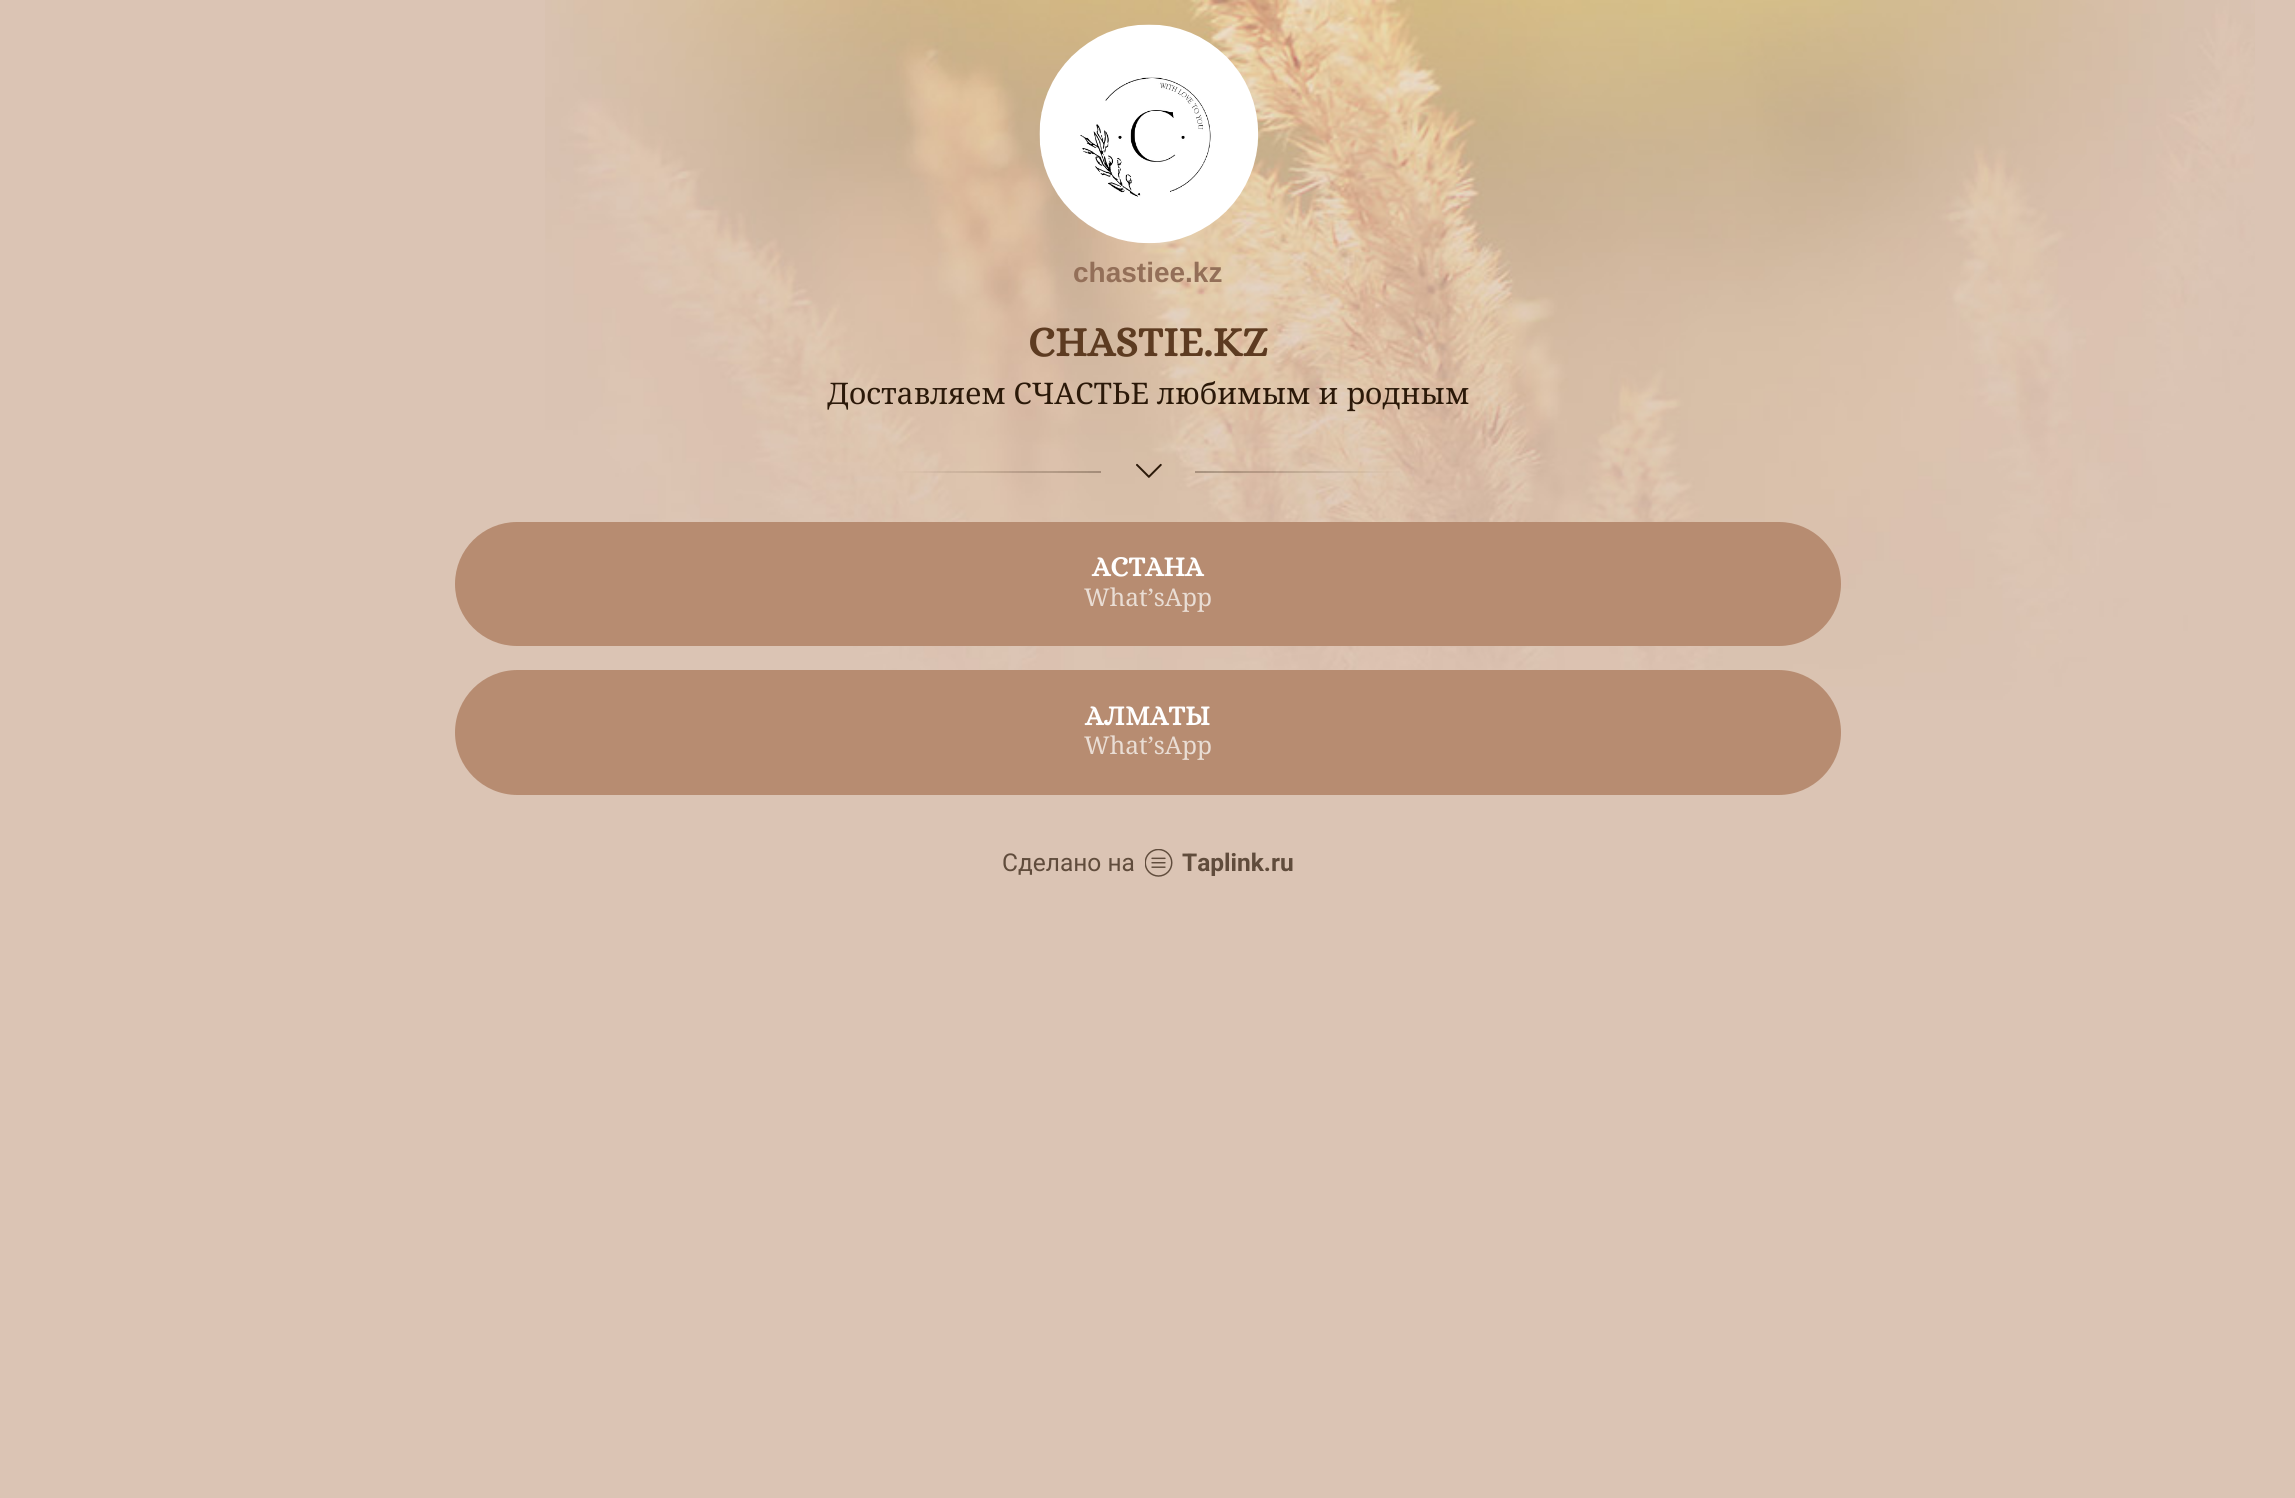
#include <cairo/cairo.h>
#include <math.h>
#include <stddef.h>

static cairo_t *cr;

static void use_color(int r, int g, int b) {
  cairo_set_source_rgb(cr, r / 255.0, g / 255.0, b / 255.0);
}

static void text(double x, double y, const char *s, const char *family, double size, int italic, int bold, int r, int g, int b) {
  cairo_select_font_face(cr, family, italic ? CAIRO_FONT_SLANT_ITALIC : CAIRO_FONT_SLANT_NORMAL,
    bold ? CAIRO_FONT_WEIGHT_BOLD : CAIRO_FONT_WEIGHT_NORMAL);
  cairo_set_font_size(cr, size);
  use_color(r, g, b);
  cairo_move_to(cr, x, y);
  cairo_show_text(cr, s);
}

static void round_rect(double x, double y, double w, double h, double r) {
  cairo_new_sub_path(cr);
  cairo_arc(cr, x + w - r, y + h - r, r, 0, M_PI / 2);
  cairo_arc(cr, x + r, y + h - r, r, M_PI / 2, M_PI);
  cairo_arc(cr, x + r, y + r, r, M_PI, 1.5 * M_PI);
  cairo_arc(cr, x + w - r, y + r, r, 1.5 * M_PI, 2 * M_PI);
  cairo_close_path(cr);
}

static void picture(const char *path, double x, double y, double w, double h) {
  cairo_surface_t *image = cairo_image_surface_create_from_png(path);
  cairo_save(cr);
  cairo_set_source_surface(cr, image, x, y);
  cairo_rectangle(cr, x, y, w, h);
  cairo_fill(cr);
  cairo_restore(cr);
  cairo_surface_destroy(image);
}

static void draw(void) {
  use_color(219, 196, 180);
  cairo_paint(cr);
  picture("img_01.png", 545, 0, 1710, 700);
  picture("img_02.png", 1039, 24, 220, 220);
  picture("img_03.png", 1136, 463, 26, 15);
  use_color(183, 140, 113);
  round_rect(457, 524, 1382, 120, 60);
  cairo_fill_preserve(cr);
  cairo_set_line_width(cr, 4);
  cairo_stroke(cr);
  round_rect(457, 672, 1382, 121, 60.5);
  cairo_fill_preserve(cr);
  cairo_stroke(cr);
  picture("img_04.png", 1145, 849, 28, 28);
  text(1073, 282, "chastiee.kz", "Liberation Sans", 28, 0, 1, 147, 111, 88);
  text(1028, 356, "CHASTIE.KZ", "Alice", 42, 0, 1, 93, 59, 33);
  text(827, 404, "Доставляем СЧАСТЬЕ любимым и родным", "Noto Serif", 29.75, 0, 0, 43, 25, 9);
  text(1092, 576, "АСТАНА", "Alice", 28, 0, 1, 255, 255, 255);
  text(1084, 606, "What’sApp", "Noto Serif", 24.5, 0, 0, 233, 221, 212);
  text(1085, 725, "АЛМАТЫ", "Alice", 28, 0, 1, 255, 255, 255);
  text(1084, 754, "What’sApp", "Noto Serif", 24.5, 0, 0, 233, 221, 212);
  text(1002, 871, "Сделано на", "Roboto", 24.5, 0, 0, 96, 76, 60);
  text(1182, 871, "Taplink.ru", "Roboto", 24.5, 0, 1, 96, 76, 60);
}

int main(void) {
  cairo_surface_t *surface = cairo_image_surface_create(CAIRO_FORMAT_RGB24, 2295, 1498);
  cr = cairo_create(surface);
  cairo_font_options_t *options = cairo_font_options_create();
  cairo_font_options_set_hint_metrics(options, CAIRO_HINT_METRICS_OFF);
  cairo_font_options_set_hint_style(options, CAIRO_HINT_STYLE_NONE);
  cairo_set_font_options(cr, options);
  cairo_set_miter_limit(cr, 4);
  draw();
  cairo_surface_write_to_png(surface, "out.png");
  cairo_font_options_destroy(options);
  cairo_destroy(cr);
  cairo_surface_destroy(surface);
  return 0;
}
